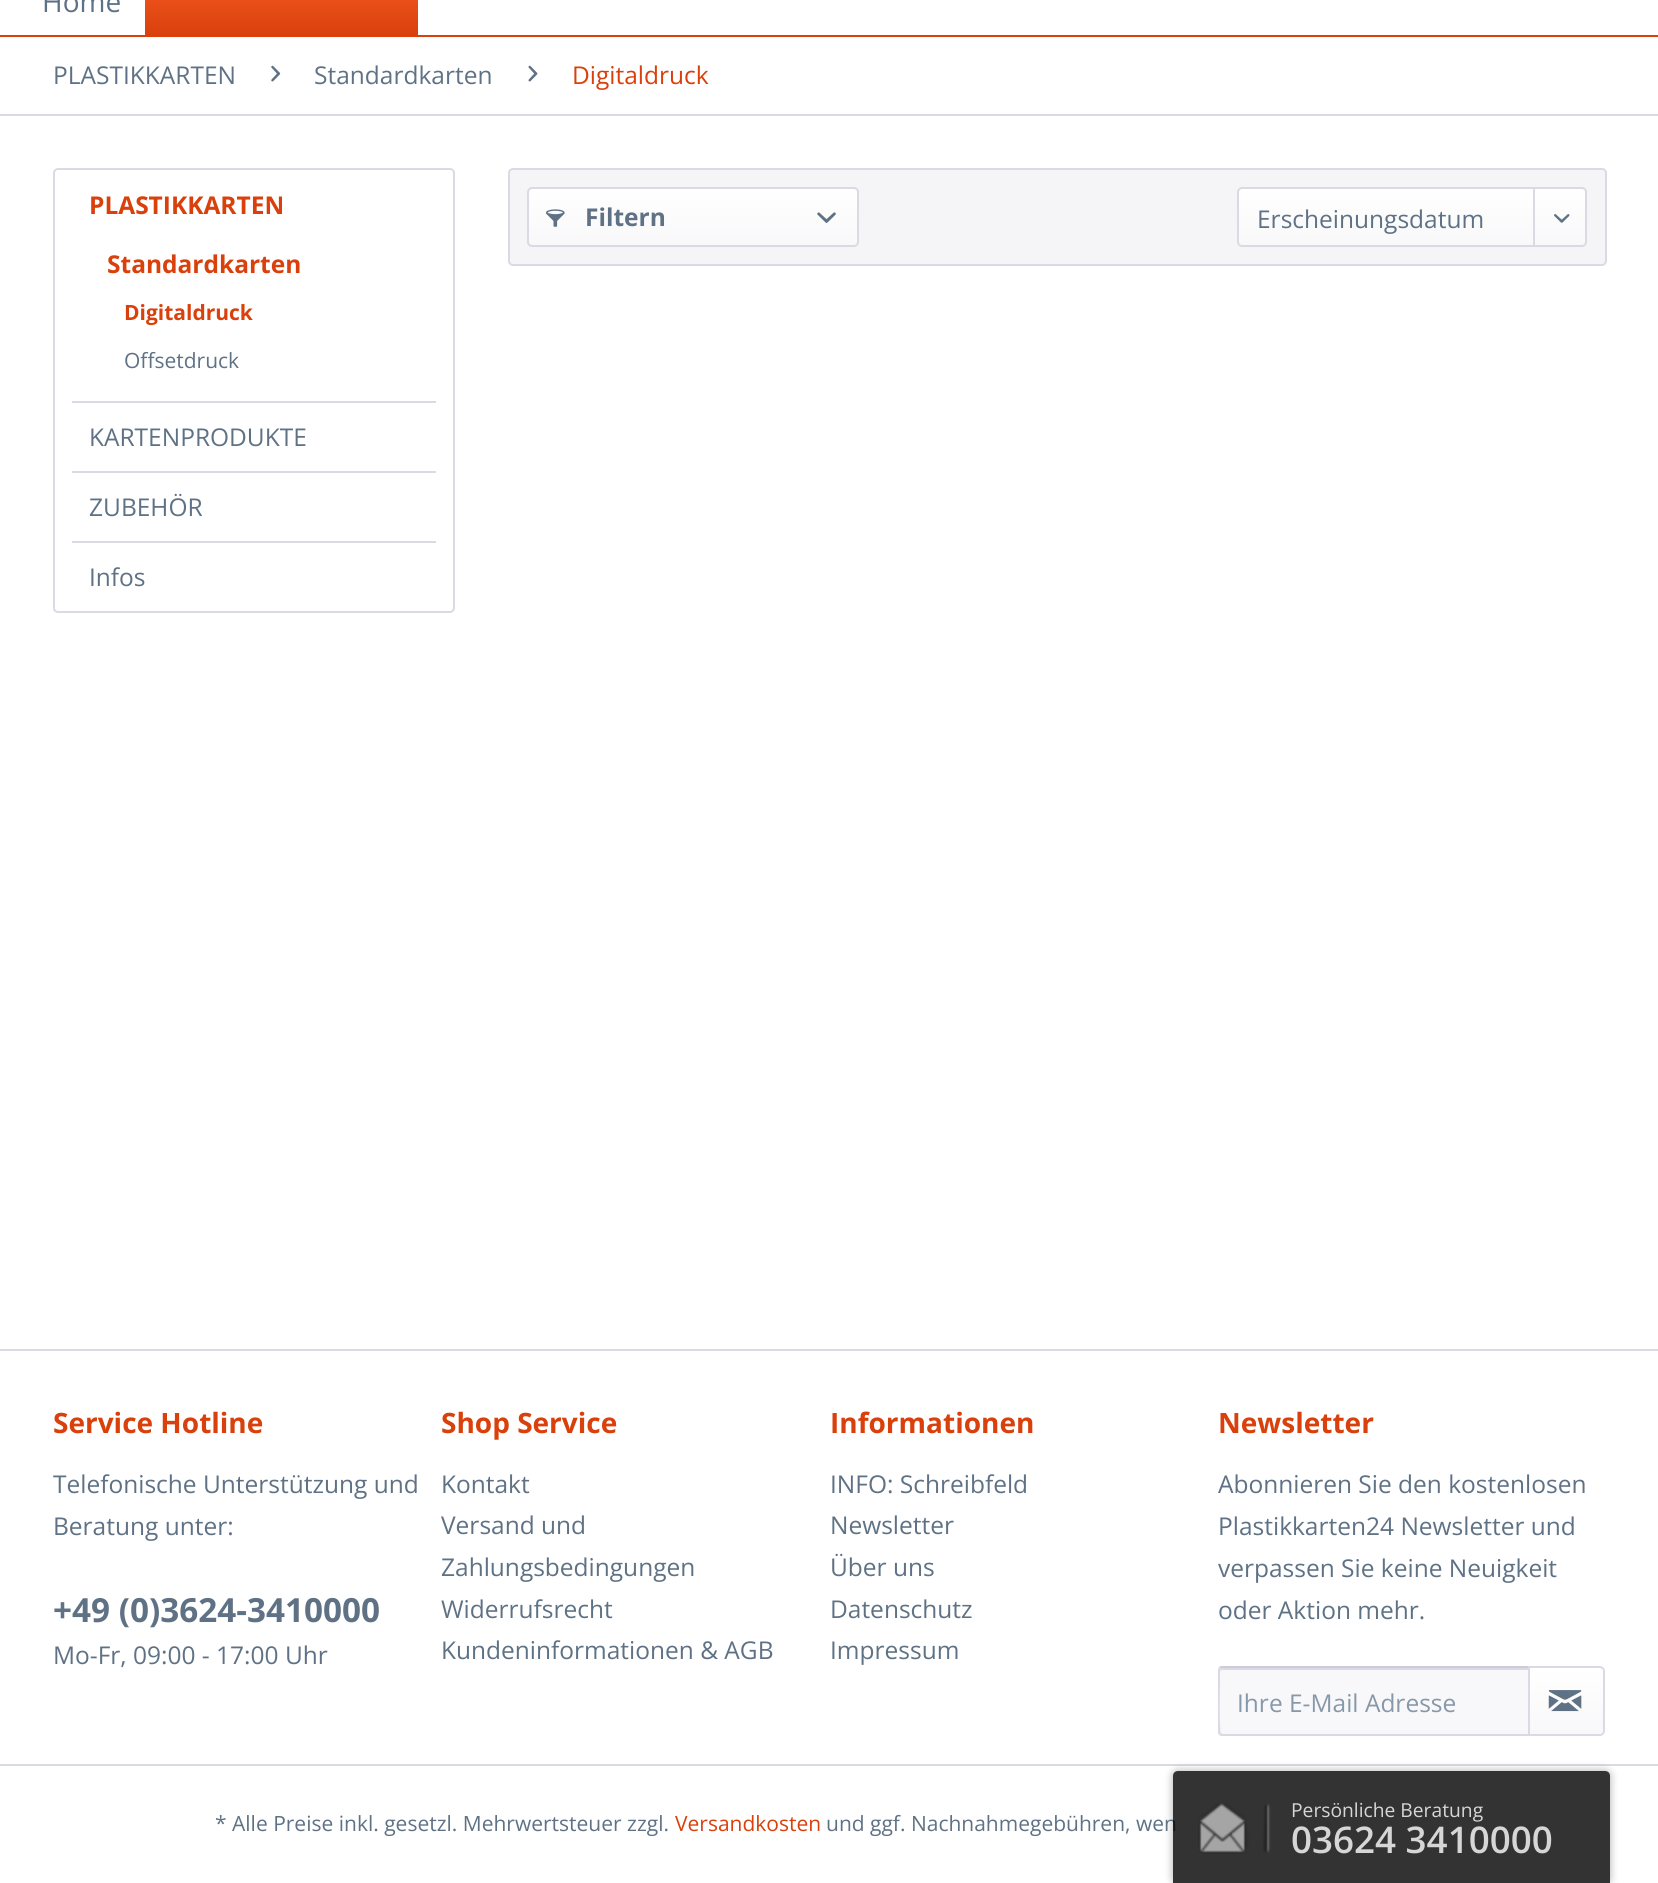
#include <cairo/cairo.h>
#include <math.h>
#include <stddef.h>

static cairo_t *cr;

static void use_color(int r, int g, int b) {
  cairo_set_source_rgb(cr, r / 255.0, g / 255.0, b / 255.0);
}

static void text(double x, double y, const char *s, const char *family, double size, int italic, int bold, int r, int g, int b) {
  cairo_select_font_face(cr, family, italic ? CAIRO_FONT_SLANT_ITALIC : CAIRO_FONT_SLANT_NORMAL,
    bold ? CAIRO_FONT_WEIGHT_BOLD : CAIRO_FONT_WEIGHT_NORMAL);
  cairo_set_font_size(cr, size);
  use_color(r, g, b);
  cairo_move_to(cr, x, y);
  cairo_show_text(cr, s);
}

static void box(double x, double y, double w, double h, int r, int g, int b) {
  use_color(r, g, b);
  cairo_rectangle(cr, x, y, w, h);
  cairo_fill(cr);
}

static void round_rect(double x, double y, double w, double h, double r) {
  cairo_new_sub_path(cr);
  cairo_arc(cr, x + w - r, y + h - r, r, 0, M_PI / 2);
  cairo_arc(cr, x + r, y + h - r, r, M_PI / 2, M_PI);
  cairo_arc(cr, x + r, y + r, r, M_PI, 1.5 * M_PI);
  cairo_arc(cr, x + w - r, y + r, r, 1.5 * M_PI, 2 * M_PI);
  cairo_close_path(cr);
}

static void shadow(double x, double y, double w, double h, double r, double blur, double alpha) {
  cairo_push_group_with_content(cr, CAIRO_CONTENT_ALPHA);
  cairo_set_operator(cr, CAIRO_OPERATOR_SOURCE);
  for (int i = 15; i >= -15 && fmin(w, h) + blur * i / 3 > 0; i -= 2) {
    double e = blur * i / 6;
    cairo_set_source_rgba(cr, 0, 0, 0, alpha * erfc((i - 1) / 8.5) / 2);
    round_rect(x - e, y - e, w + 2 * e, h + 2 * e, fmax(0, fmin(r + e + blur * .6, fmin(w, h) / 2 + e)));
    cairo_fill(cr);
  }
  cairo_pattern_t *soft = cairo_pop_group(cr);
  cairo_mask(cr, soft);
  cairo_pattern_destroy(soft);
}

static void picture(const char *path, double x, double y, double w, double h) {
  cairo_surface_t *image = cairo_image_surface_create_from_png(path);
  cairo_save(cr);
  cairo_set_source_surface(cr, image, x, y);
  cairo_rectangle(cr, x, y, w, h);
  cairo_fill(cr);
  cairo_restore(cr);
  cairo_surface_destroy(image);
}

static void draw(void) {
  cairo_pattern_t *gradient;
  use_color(255, 255, 255);
  cairo_paint(cr);
  box(0, 35, 1658, 2, 217, 64, 11);
  gradient = cairo_pattern_create_linear(282, -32, 282, 35);
  cairo_pattern_add_color_stop_rgba(gradient, 0, 0.98, 0.365, 0.153, 1);
  cairo_pattern_add_color_stop_rgba(gradient, 1, 0.851, 0.251, 0.043, 1);
  cairo_set_source(cr, gradient);
  cairo_pattern_destroy(gradient);
  cairo_rectangle(cr, 145, 0, 273, 35);
  cairo_fill(cr);
  box(0, 114, 1658, 2, 218, 218, 229);
  picture("img_01.png", 271, 65, 10, 17);
  picture("img_02.png", 528, 65, 10, 17);
  round_rect(54, 169, 400, 443, 4);
  cairo_stroke(cr);
  box(72, 401, 364, 2, 218, 218, 229);
  box(72, 471, 364, 2, 218, 218, 229);
  box(72, 541, 364, 2, 218, 218, 229);
  use_color(245, 245, 248);
  round_rect(509, 169, 1097, 96, 4);
  cairo_fill_preserve(cr);
  use_color(218, 218, 229);
  cairo_stroke(cr);
  gradient = cairo_pattern_create_linear(693, 189, 693, 245);
  cairo_pattern_add_color_stop_rgba(gradient, 0, 1, 1, 1, 1);
  cairo_pattern_add_color_stop_rgba(gradient, 1, 0.973, 0.973, 0.98, 1);
  cairo_set_source(cr, gradient);
  cairo_pattern_destroy(gradient);
  round_rect(529, 189, 329, 56, 4);
  cairo_fill(cr);
  round_rect(528, 188, 330, 58, 4);
  use_color(218, 218, 229);
  cairo_stroke(cr);
  picture("img_03.png", 546, 209, 19, 18);
  picture("img_04.png", 817, 212, 19, 11);
  gradient = cairo_pattern_create_linear(1412, 189, 1412, 245);
  cairo_pattern_add_color_stop_rgba(gradient, 0, 1, 1, 1, 1);
  cairo_pattern_add_color_stop_rgba(gradient, 1, 0.973, 0.973, 0.98, 1);
  cairo_set_source(cr, gradient);
  cairo_pattern_destroy(gradient);
  round_rect(1239, 189, 347, 56, 4);
  cairo_fill(cr);
  round_rect(1238, 188, 348, 58, 4);
  use_color(218, 218, 229);
  cairo_stroke(cr);
  box(1533, 189, 2, 58, 218, 218, 229);
  picture("img_05.png", 1554, 214, 16, 9);
  box(0, 1349, 1658, 2, 218, 218, 229);
  box(0, 1764, 1658, 2, 218, 218, 229);
  use_color(248, 248, 250);
  cairo_new_path(cr);
  cairo_move_to(cr, 1224, 1668);
  cairo_line_to(cr, 1528, 1668);
  cairo_line_to(cr, 1528, 1734);
  cairo_line_to(cr, 1224, 1734);
  cairo_curve_to(cr, 1222, 1734, 1220, 1732, 1220, 1730);
  cairo_line_to(cr, 1220, 1672);
  cairo_curve_to(cr, 1220, 1670, 1222, 1668, 1224, 1668);
  cairo_close_path(cr);
  cairo_fill(cr);
  use_color(218, 218, 229);
  cairo_new_path(cr);
  cairo_move_to(cr, 1223, 1670);
  cairo_line_to(cr, 1528, 1670);
  cairo_line_to(cr, 1528, 1668);
  cairo_line_to(cr, 1224, 1668);
  cairo_curve_to(cr, 1222, 1668, 1220, 1670, 1220, 1672);
  cairo_line_to(cr, 1220, 1673);
  cairo_curve_to(cr, 1220, 1671, 1221, 1670, 1223, 1670);
  cairo_close_path(cr);
  cairo_fill(cr);
  use_color(203, 203, 219);
  cairo_new_path(cr);
  cairo_move_to(cr, 1223, 1666);
  cairo_curve_to(cr, 1222, 1666, 1220, 1666, 1219, 1667);
  cairo_line_to(cr, 1221, 1669);
  cairo_line_to(cr, 1223, 1668);
  cairo_line_to(cr, 1528, 1668);
  cairo_line_to(cr, 1530, 1666);
  cairo_close_path(cr);
  cairo_fill(cr);
  use_color(218, 218, 229);
  cairo_new_path(cr);
  cairo_move_to(cr, 1530, 1736);
  cairo_line_to(cr, 1528, 1734);
  cairo_line_to(cr, 1223, 1734);
  cairo_line_to(cr, 1221, 1733);
  cairo_line_to(cr, 1219, 1735);
  cairo_curve_to(cr, 1220, 1736, 1222, 1736, 1223, 1736);
  cairo_close_path(cr);
  cairo_fill(cr);
  cairo_new_path(cr);
  cairo_move_to(cr, 1218, 1671);
  cairo_line_to(cr, 1218, 1731);
  cairo_curve_to(cr, 1218, 1732, 1218, 1734, 1219, 1735);
  cairo_line_to(cr, 1221, 1733);
  cairo_curve_to(cr, 1219, 1731, 1220, 1687, 1220, 1681);
  cairo_line_to(cr, 1220, 1671);
  cairo_line_to(cr, 1221, 1669);
  cairo_line_to(cr, 1219, 1667);
  cairo_curve_to(cr, 1218, 1668, 1218, 1670, 1218, 1671);
  cairo_close_path(cr);
  cairo_fill(cr);
  gradient = cairo_pattern_create_linear(1566, 1668, 1566, 1734);
  cairo_pattern_add_color_stop_rgba(gradient, 0, 1, 1, 1, 1);
  cairo_pattern_add_color_stop_rgba(gradient, 1, 0.973, 0.973, 0.98, 1);
  cairo_set_source(cr, gradient);
  cairo_pattern_destroy(gradient);
  cairo_new_path(cr);
  cairo_move_to(cr, 1530, 1668);
  cairo_line_to(cr, 1599, 1668);
  cairo_curve_to(cr, 1601, 1668, 1603, 1670, 1603, 1672);
  cairo_line_to(cr, 1603, 1730);
  cairo_curve_to(cr, 1603, 1732, 1601, 1734, 1599, 1734);
  cairo_line_to(cr, 1530, 1734);
  cairo_close_path(cr);
  cairo_fill(cr);
  cairo_new_path(cr);
  cairo_move_to(cr, 1529, 1667);
  cairo_line_to(cr, 1600, 1667);
  cairo_curve_to(cr, 1602, 1667, 1604, 1669, 1604, 1671);
  cairo_line_to(cr, 1604, 1731);
  cairo_curve_to(cr, 1604, 1733, 1602, 1735, 1600, 1735);
  cairo_line_to(cr, 1529, 1735);
  cairo_close_path(cr);
  use_color(218, 218, 229);
  cairo_stroke(cr);
  picture("img_06.png", 1548, 1690, 34, 22);
  cairo_save(cr);
  cairo_set_fill_rule(cr, CAIRO_FILL_RULE_EVEN_ODD);
  cairo_new_path(cr);
  cairo_move_to(cr, 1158, 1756);
  cairo_line_to(cr, 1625, 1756);
  cairo_line_to(cr, 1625, 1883);
  cairo_line_to(cr, 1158, 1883);
  cairo_close_path(cr);
  cairo_move_to(cr, 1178, 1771);
  cairo_line_to(cr, 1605, 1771);
  cairo_curve_to(cr, 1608, 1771, 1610, 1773, 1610, 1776);
  cairo_line_to(cr, 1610, 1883);
  cairo_line_to(cr, 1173, 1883);
  cairo_line_to(cr, 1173, 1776);
  cairo_curve_to(cr, 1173, 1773, 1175, 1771, 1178, 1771);
  cairo_close_path(cr);
  cairo_clip(cr);
  use_color(0, 0, 0);
  shadow(1173, 1771, 437, 112, 5, 4.5, 0.32);
  cairo_restore(cr);
  text(42, 12, "Home", "Open Sans", 28, 0, 0, 95, 114, 133);
  text(53, 84, "PLASTIKKARTEN", "Open Sans", 24.5, 0, 0, 95, 114, 133);
  text(314, 84, "Standardkarten", "Open Sans", 24.5, 0, 0, 95, 114, 133);
  text(572, 84, "Digitaldruck", "Open Sans", 24.5, 0, 0, 217, 64, 11);
  text(89, 214, "PLASTIKKARTEN", "Open Sans", 24.5, 0, 1, 217, 64, 11);
  text(107, 273, "Standardkarten", "Open Sans", 24.5, 0, 1, 217, 64, 11);
  text(124, 320, "Digitaldruck", "Open Sans", 21, 0, 1, 217, 64, 11);
  text(124, 368, "Offsetdruck", "Open Sans", 21, 0, 0, 95, 114, 133);
  text(89, 446, "KARTENPRODUKTE", "Open Sans", 24.5, 0, 0, 95, 114, 133);
  text(89, 516, "ZUBEHÖR", "Open Sans", 24.5, 0, 0, 95, 114, 133);
  text(89, 586, "Infos", "Open Sans", 24.5, 0, 0, 95, 114, 133);
  text(585, 226, "Filtern", "Open Sans", 24.5, 0, 1, 95, 114, 133);
  text(1257, 228, "Erscheinungsdatum", "Open Sans", 24.5, 0, 0, 95, 114, 133);
  text(53, 1433, "Service Hotline", "Open Sans", 28, 0, 1, 217, 64, 11);
  text(53, 1493, "Telefonische Unterstützung und", "Open Sans", 24.5, 0, 0, 95, 114, 133);
  text(53, 1535, "Beratung unter:", "Open Sans", 24.5, 0, 0, 95, 114, 133);
  text(53, 1622, "+49 (0)3624-3410000", "Open Sans", 33.25, 0, 1, 95, 114, 133);
  text(53, 1664, "Mo-Fr, 09:00 - 17:00 Uhr", "Open Sans", 24.5, 0, 0, 95, 114, 133);
  text(441, 1433, "Shop Service", "Open Sans", 28, 0, 1, 217, 64, 11);
  text(441, 1493, "Kontakt", "Open Sans", 24.5, 0, 0, 95, 114, 133);
  text(441, 1534, "Versand und", "Open Sans", 24.5, 0, 0, 95, 114, 133);
  text(441, 1576, "Zahlungsbedingungen", "Open Sans", 24.5, 0, 0, 95, 114, 133);
  text(441, 1618, "Widerrufsrecht", "Open Sans", 24.5, 0, 0, 95, 114, 133);
  text(441, 1659, "Kundeninformationen & AGB", "Open Sans", 24.5, 0, 0, 95, 114, 133);
  text(830, 1433, "Informationen", "Open Sans", 28, 0, 1, 217, 64, 11);
  text(830, 1493, "INFO: Schreibfeld", "Open Sans", 24.5, 0, 0, 95, 114, 133);
  text(830, 1534, "Newsletter", "Open Sans", 24.5, 0, 0, 95, 114, 133);
  text(830, 1576, "Über uns", "Open Sans", 24.5, 0, 0, 95, 114, 133);
  text(830, 1618, "Datenschutz", "Open Sans", 24.5, 0, 0, 95, 114, 133);
  text(830, 1659, "Impressum", "Open Sans", 24.5, 0, 0, 95, 114, 133);
  text(1218, 1433, "Newsletter", "Open Sans", 28, 0, 1, 217, 64, 11);
  text(1218, 1493, "Abonnieren Sie den kostenlosen", "Open Sans", 24.5, 0, 0, 95, 114, 133);
  text(1218, 1535, "Plastikkarten24 Newsletter und", "Open Sans", 24.5, 0, 0, 95, 114, 133);
  text(1218, 1577, "verpassen Sie keine Neuigkeit", "Open Sans", 24.5, 0, 0, 95, 114, 133);
  text(1218, 1619, "oder Aktion mehr.", "Open Sans", 24.5, 0, 0, 95, 114, 133);
  text(1237, 1712, "Ihre E-Mail Adresse", "Open Sans", 24.5, 0, 0, 135, 152, 169);
  text(215, 1831, "* Alle Preise inkl. gesetzl. Mehrwertsteuer zzgl.", "Open Sans", 21, 0, 0, 95, 114, 133);
  text(675, 1831, "Versandkosten", "Open Sans", 21, 0, 0, 217, 64, 11);
  text(826, 1831, "und ggf. Nachnahmegebühren, wen", "Open Sans", 21, 0, 0, 95, 114, 133);
  cairo_set_source_rgba(cr, 0, 0, 0, 0.8);
  cairo_new_path(cr);
  cairo_move_to(cr, 1178, 1771);
  cairo_line_to(cr, 1605, 1771);
  cairo_curve_to(cr, 1608, 1771, 1610, 1773, 1610, 1776);
  cairo_line_to(cr, 1610, 1883);
  cairo_line_to(cr, 1173, 1883);
  cairo_line_to(cr, 1173, 1776);
  cairo_curve_to(cr, 1173, 1773, 1175, 1771, 1178, 1771);
  cairo_close_path(cr);
  cairo_fill(cr);
  picture("img_07.png", 1198, 1803, 73, 51);
  text(1291, 1817, "Persönliche Beratung", "Open Sans", 19.25, 0, 0, 214, 214, 214);
  text(1291, 1853, "03624 3410000", "Open Sans SemiBold", 36.75, 0, 0, 214, 214, 214);
}

int main(void) {
  cairo_surface_t *surface = cairo_image_surface_create(CAIRO_FORMAT_RGB24, 1658, 1883);
  cr = cairo_create(surface);
  cairo_font_options_t *options = cairo_font_options_create();
  cairo_font_options_set_hint_metrics(options, CAIRO_HINT_METRICS_OFF);
  cairo_font_options_set_hint_style(options, CAIRO_HINT_STYLE_NONE);
  cairo_set_font_options(cr, options);
  cairo_set_miter_limit(cr, 4);
  draw();
  cairo_surface_write_to_png(surface, "out.png");
  cairo_font_options_destroy(options);
  cairo_destroy(cr);
  cairo_surface_destroy(surface);
  return 0;
}
